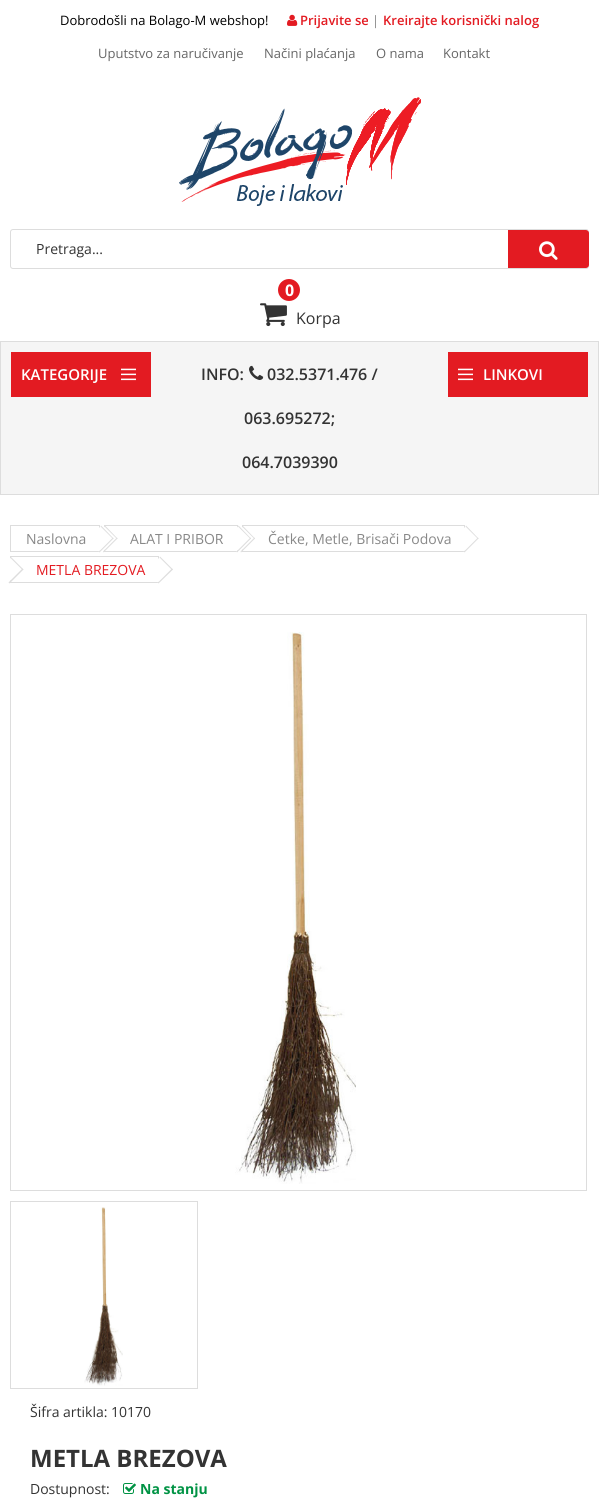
#include <cairo/cairo.h>
#include <math.h>
#include <stddef.h>

static cairo_t *cr;

static void use_color(int r, int g, int b) {
  cairo_set_source_rgb(cr, r / 255.0, g / 255.0, b / 255.0);
}

static void text(double x, double y, const char *s, const char *family, double size, int italic, int bold, int r, int g, int b) {
  cairo_select_font_face(cr, family, italic ? CAIRO_FONT_SLANT_ITALIC : CAIRO_FONT_SLANT_NORMAL,
    bold ? CAIRO_FONT_WEIGHT_BOLD : CAIRO_FONT_WEIGHT_NORMAL);
  cairo_set_font_size(cr, size);
  use_color(r, g, b);
  cairo_move_to(cr, x, y);
  cairo_show_text(cr, s);
}

static void box(double x, double y, double w, double h, int r, int g, int b) {
  use_color(r, g, b);
  cairo_rectangle(cr, x, y, w, h);
  cairo_fill(cr);
}

static void round_rect(double x, double y, double w, double h, double r) {
  cairo_new_sub_path(cr);
  cairo_arc(cr, x + w - r, y + h - r, r, 0, M_PI / 2);
  cairo_arc(cr, x + r, y + h - r, r, M_PI / 2, M_PI);
  cairo_arc(cr, x + r, y + r, r, M_PI, 1.5 * M_PI);
  cairo_arc(cr, x + w - r, y + r, r, 1.5 * M_PI, 2 * M_PI);
  cairo_close_path(cr);
}

static void picture(const char *path, double x, double y, double w, double h) {
  cairo_surface_t *image = cairo_image_surface_create_from_png(path);
  cairo_save(cr);
  cairo_set_source_surface(cr, image, x, y);
  cairo_rectangle(cr, x, y, w, h);
  cairo_fill(cr);
  cairo_restore(cr);
  cairo_surface_destroy(image);
}

static void draw(void) {
  use_color(255, 255, 255);
  cairo_paint(cr);
  picture("img_01.png", 287, 14, 11, 12);
  picture("img_02.png", 179, 97, 242, 109);
  round_rect(10.5, 229.5, 578, 39, 2.5);
  use_color(221, 221, 221);
  cairo_set_line_width(cr, 1);
  cairo_stroke(cr);
  use_color(227, 27, 34);
  cairo_new_path(cr);
  cairo_move_to(cr, 508, 230);
  cairo_line_to(cr, 586, 230);
  cairo_curve_to(cr, 587.5, 230, 589, 231.5, 589, 233);
  cairo_line_to(cr, 589, 265);
  cairo_curve_to(cr, 589, 266.5, 587.5, 268, 586, 268);
  cairo_line_to(cr, 508, 268);
  cairo_close_path(cr);
  cairo_fill(cr);
  picture("img_03.png", 539, 241, 19, 19);
  cairo_arc(cr, 289, 290, 11, 0, 2 * M_PI);
  cairo_fill(cr);
  picture("img_04.png", 260, 303, 27, 24);
  use_color(245, 245, 245);
  cairo_rectangle(cr, 0.5, 341.5, 598, 153);
  cairo_fill_preserve(cr);
  use_color(221, 221, 221);
  cairo_stroke(cr);
  box(11, 352, 140, 45, 227, 27, 34);
  picture("img_05.png", 121, 368, 15, 13);
  picture("img_06.png", 249, 365, 15, 15);
  box(448, 352, 140, 45, 227, 27, 34);
  picture("img_05.png", 458, 368, 15, 13);
  cairo_rectangle(cr, 10.5, 525.5, 89, 26);
  use_color(221, 221, 221);
  cairo_stroke(cr);
  cairo_rectangle(cr, 104.5, 525.5, 133, 26);
  cairo_stroke(cr);
  use_color(255, 255, 255);
  cairo_new_path(cr);
  cairo_move_to(cr, 104.5, 526.5);
  cairo_line_to(cr, 116.5, 538.5);
  cairo_line_to(cr, 103, 551.5);
  cairo_line_to(cr, 91, 539.5);
  cairo_close_path(cr);
  cairo_fill(cr);
  use_color(221, 221, 221);
  cairo_new_path(cr);
  cairo_move_to(cr, 105, 525.5);
  cairo_line_to(cr, 117.5, 538.5);
  cairo_line_to(cr, 117, 539);
  cairo_line_to(cr, 104.5, 526.5);
  cairo_close_path(cr);
  cairo_fill(cr);
  cairo_new_path(cr);
  cairo_move_to(cr, 117, 537.5);
  cairo_line_to(cr, 117.5, 538.5);
  cairo_line_to(cr, 103.5, 552.5);
  cairo_line_to(cr, 103, 551.5);
  cairo_close_path(cr);
  cairo_fill(cr);
  use_color(255, 255, 255);
  cairo_new_path(cr);
  cairo_move_to(cr, 100.5, 526.5);
  cairo_line_to(cr, 112.5, 538.5);
  cairo_line_to(cr, 99, 551.5);
  cairo_line_to(cr, 87, 539.5);
  cairo_close_path(cr);
  cairo_fill(cr);
  use_color(221, 221, 221);
  cairo_new_path(cr);
  cairo_move_to(cr, 101, 525.5);
  cairo_line_to(cr, 113.5, 538.5);
  cairo_line_to(cr, 113, 539);
  cairo_line_to(cr, 100.5, 526.5);
  cairo_close_path(cr);
  cairo_fill(cr);
  cairo_new_path(cr);
  cairo_move_to(cr, 113, 537.5);
  cairo_line_to(cr, 113.5, 538.5);
  cairo_line_to(cr, 99.5, 552.5);
  cairo_line_to(cr, 99, 551.5);
  cairo_close_path(cr);
  cairo_fill(cr);
  cairo_rectangle(cr, 242.5, 525.5, 222, 26);
  cairo_stroke(cr);
  use_color(255, 255, 255);
  cairo_new_path(cr);
  cairo_move_to(cr, 242, 526.5);
  cairo_line_to(cr, 254, 538.5);
  cairo_line_to(cr, 240.5, 551.5);
  cairo_line_to(cr, 228.5, 539.5);
  cairo_close_path(cr);
  cairo_fill(cr);
  use_color(221, 221, 221);
  cairo_new_path(cr);
  cairo_move_to(cr, 242.5, 525.5);
  cairo_line_to(cr, 255, 538.5);
  cairo_line_to(cr, 254.5, 539);
  cairo_line_to(cr, 242, 526.5);
  cairo_close_path(cr);
  cairo_fill(cr);
  cairo_new_path(cr);
  cairo_move_to(cr, 254.5, 537.5);
  cairo_line_to(cr, 255, 538.5);
  cairo_line_to(cr, 241, 552.5);
  cairo_line_to(cr, 240.5, 551.5);
  cairo_close_path(cr);
  cairo_fill(cr);
  use_color(255, 255, 255);
  cairo_new_path(cr);
  cairo_move_to(cr, 238, 526.5);
  cairo_line_to(cr, 250, 538.5);
  cairo_line_to(cr, 236.5, 551.5);
  cairo_line_to(cr, 224.5, 539.5);
  cairo_close_path(cr);
  cairo_fill(cr);
  use_color(221, 221, 221);
  cairo_new_path(cr);
  cairo_move_to(cr, 238.5, 525.5);
  cairo_line_to(cr, 251, 538.5);
  cairo_line_to(cr, 250.5, 539);
  cairo_line_to(cr, 238, 526.5);
  cairo_close_path(cr);
  cairo_fill(cr);
  cairo_new_path(cr);
  cairo_move_to(cr, 250.5, 537.5);
  cairo_line_to(cr, 251, 538.5);
  cairo_line_to(cr, 237, 552.5);
  cairo_line_to(cr, 236.5, 551.5);
  cairo_close_path(cr);
  cairo_fill(cr);
  use_color(255, 255, 255);
  cairo_new_path(cr);
  cairo_move_to(cr, 465.5, 526.5);
  cairo_line_to(cr, 477.5, 538.5);
  cairo_line_to(cr, 464, 551.5);
  cairo_line_to(cr, 452, 539.5);
  cairo_close_path(cr);
  cairo_fill(cr);
  use_color(221, 221, 221);
  cairo_new_path(cr);
  cairo_move_to(cr, 466, 525.5);
  cairo_line_to(cr, 478.5, 538.5);
  cairo_line_to(cr, 478, 539);
  cairo_line_to(cr, 465.5, 526.5);
  cairo_close_path(cr);
  cairo_fill(cr);
  cairo_new_path(cr);
  cairo_move_to(cr, 478, 537.5);
  cairo_line_to(cr, 478.5, 538.5);
  cairo_line_to(cr, 464.5, 552.5);
  cairo_line_to(cr, 464, 551.5);
  cairo_close_path(cr);
  cairo_fill(cr);
  cairo_rectangle(cr, 10.5, 556.5, 148, 26);
  cairo_stroke(cr);
  use_color(255, 255, 255);
  cairo_new_path(cr);
  cairo_move_to(cr, 10, 557.5);
  cairo_line_to(cr, 22, 569.5);
  cairo_line_to(cr, 8.5, 582.5);
  cairo_line_to(cr, -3.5, 570.5);
  cairo_close_path(cr);
  cairo_fill(cr);
  use_color(221, 221, 221);
  cairo_new_path(cr);
  cairo_move_to(cr, 10.5, 556.5);
  cairo_line_to(cr, 23.5, 569.5);
  cairo_line_to(cr, 22.5, 570);
  cairo_line_to(cr, 10, 557.5);
  cairo_close_path(cr);
  cairo_fill(cr);
  cairo_new_path(cr);
  cairo_move_to(cr, 22.5, 568.5);
  cairo_line_to(cr, 23.5, 569.5);
  cairo_line_to(cr, 9.5, 583.5);
  cairo_line_to(cr, 8.5, 582.5);
  cairo_close_path(cr);
  cairo_fill(cr);
  use_color(255, 255, 255);
  cairo_new_path(cr);
  cairo_move_to(cr, 159.5, 557.5);
  cairo_line_to(cr, 171.5, 569.5);
  cairo_line_to(cr, 158, 582.5);
  cairo_line_to(cr, 146, 570.5);
  cairo_close_path(cr);
  cairo_fill(cr);
  use_color(221, 221, 221);
  cairo_new_path(cr);
  cairo_move_to(cr, 160, 556.5);
  cairo_line_to(cr, 173, 569.5);
  cairo_line_to(cr, 172, 570);
  cairo_line_to(cr, 159.5, 557.5);
  cairo_close_path(cr);
  cairo_fill(cr);
  cairo_new_path(cr);
  cairo_move_to(cr, 172, 568.5);
  cairo_line_to(cr, 173, 569.5);
  cairo_line_to(cr, 158.5, 583.5);
  cairo_line_to(cr, 158, 582.5);
  cairo_close_path(cr);
  cairo_fill(cr);
  cairo_rectangle(cr, 10.5, 614.5, 576, 576);
  cairo_stroke(cr);
  picture("img_07.png", 235, 632, 121, 552);
  cairo_rectangle(cr, 10.5, 1201.5, 187, 187);
  cairo_stroke(cr);
  picture("img_08.png", 84, 1207, 39, 179);
  picture("img_09.png", 123, 1483, 13, 11);
  text(60, 25, "Dobrodošli na Bolago-M webshop!", "Open Sans", 13, 0, 0, 0, 0, 0);
  text(300, 25, "Prijavite se", "Open Sans SemiBold", 13, 0, 0, 227, 27, 34);
  text(372, 25, "|", "Open Sans", 13, 0, 0, 136, 136, 136);
  text(383, 25, "Kreirajte korisnički nalog", "Open Sans SemiBold", 13, 0, 0, 227, 27, 34);
  text(98, 58, "Uputstvo za naručivanje", "Open Sans", 13, 0, 0, 102, 102, 102);
  text(264, 58, "Načini plaćanja", "Open Sans", 13, 0, 0, 102, 102, 102);
  text(376, 58, "O nama", "Open Sans", 13, 0, 0, 102, 102, 102);
  text(443, 58, "Kontakt", "Open Sans", 13, 0, 0, 102, 102, 102);
  text(36, 254, "Pretraga...", "Open Sans", 14, 0, 0, 51, 51, 51);
  text(285, 296, "0", "Open Sans", 16, 0, 1, 255, 255, 255);
  text(296, 324, "Korpa", "Open Sans", 16, 0, 0, 51, 51, 51);
  text(21, 380, "KATEGORIJE", "Open Sans SemiBold", 15, 0, 0, 255, 255, 255);
  text(201, 380, "INFO:", "Open Sans SemiBold", 16, 0, 0, 51, 51, 51);
  text(267, 380, "032.5371.476 /", "Open Sans SemiBold", 16, 0, 0, 51, 51, 51);
  text(244, 424, "063.695272;", "Open Sans SemiBold", 16, 0, 0, 51, 51, 51);
  text(242, 468, "064.7039390", "Open Sans SemiBold", 16, 0, 0, 51, 51, 51);
  text(483, 380, "LINKOVI", "Open Sans SemiBold", 15, 0, 0, 255, 255, 255);
  text(26, 544, "Naslovna", "Open Sans", 14, 0, 0, 136, 136, 136);
  text(130, 544, "ALAT I PRIBOR", "Open Sans", 14, 0, 0, 136, 136, 136);
  text(268, 544, "Četke, Metle, Brisači Podova", "Open Sans", 14, 0, 0, 136, 136, 136);
  text(36, 575, "METLA BREZOVA", "Open Sans", 14, 0, 0, 227, 27, 34);
  text(30, 1417, "Šifra artikla: 10170", "Open Sans", 14, 0, 0, 51, 51, 51);
  text(30, 1467, "METLA BREZOVA", "Open Sans", 24, 0, 1, 51, 51, 51);
  text(30, 1494, "Dostupnost:", "Open Sans", 14, 0, 0, 51, 51, 51);
  text(140, 1494, "Na stanju", "Open Sans", 14, 0, 1, 0, 147, 68);
}

int main(void) {
  cairo_surface_t *surface = cairo_image_surface_create(CAIRO_FORMAT_RGB24, 599, 1498);
  cr = cairo_create(surface);
  cairo_font_options_t *options = cairo_font_options_create();
  cairo_font_options_set_hint_metrics(options, CAIRO_HINT_METRICS_OFF);
  cairo_font_options_set_hint_style(options, CAIRO_HINT_STYLE_NONE);
  cairo_set_font_options(cr, options);
  cairo_set_miter_limit(cr, 4);
  draw();
  cairo_surface_write_to_png(surface, "out.png");
  cairo_font_options_destroy(options);
  cairo_destroy(cr);
  cairo_surface_destroy(surface);
  return 0;
}
